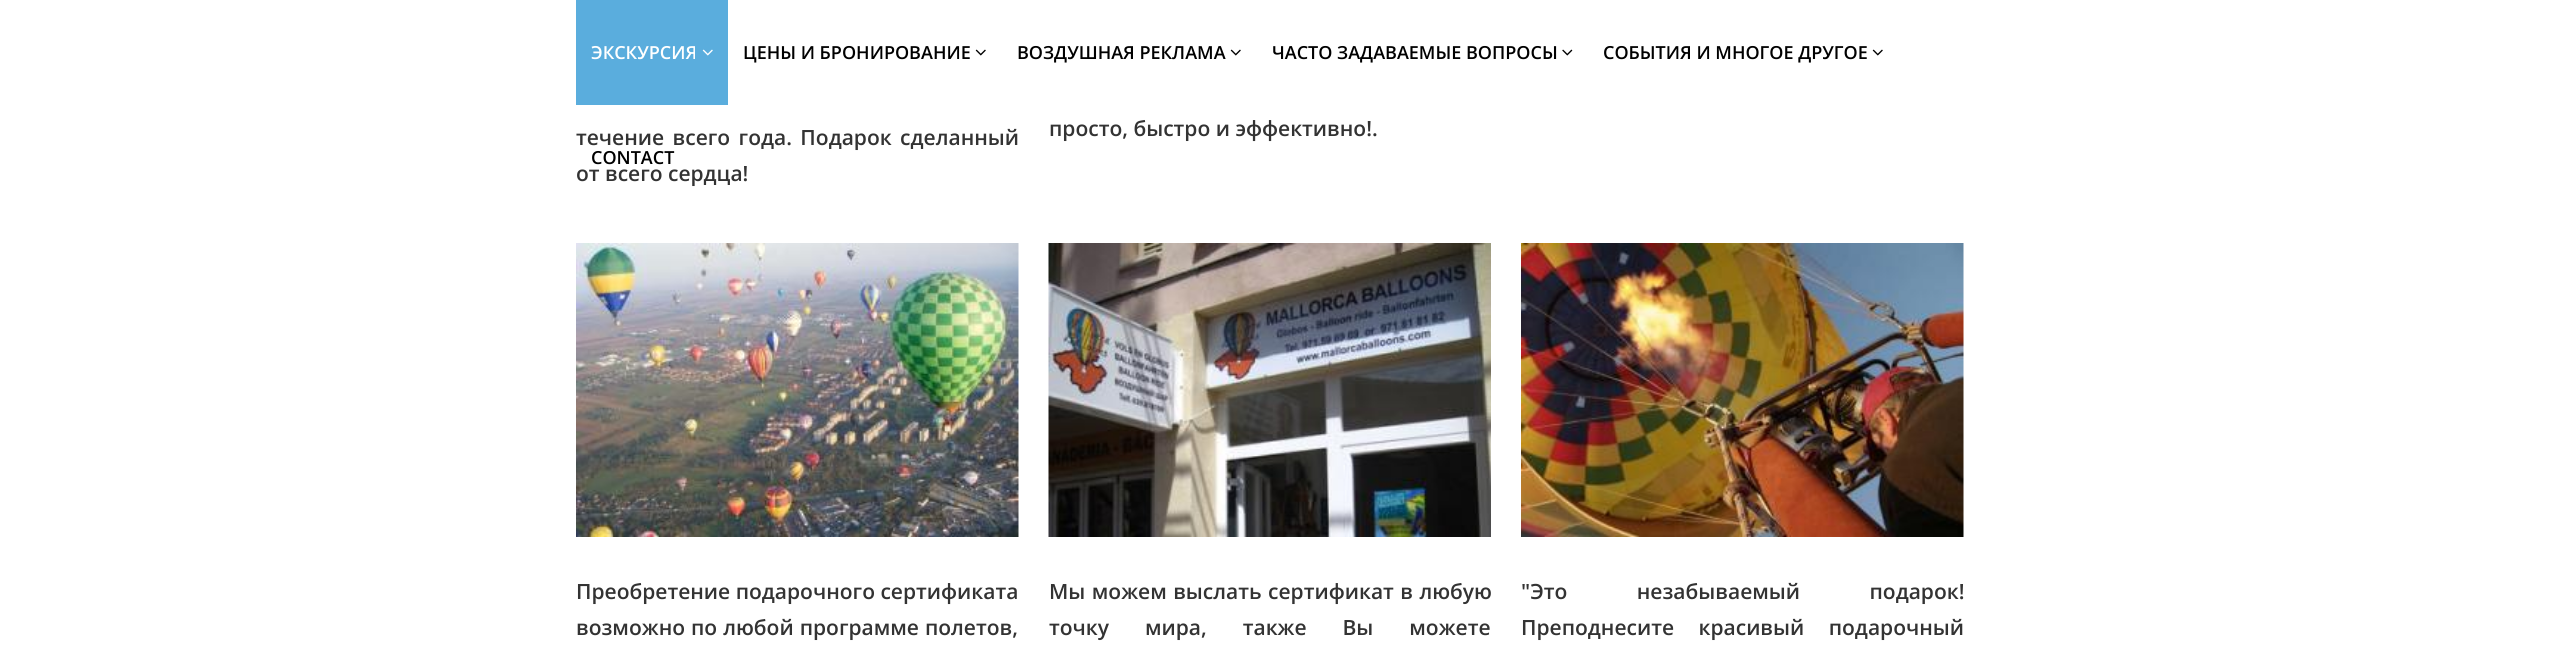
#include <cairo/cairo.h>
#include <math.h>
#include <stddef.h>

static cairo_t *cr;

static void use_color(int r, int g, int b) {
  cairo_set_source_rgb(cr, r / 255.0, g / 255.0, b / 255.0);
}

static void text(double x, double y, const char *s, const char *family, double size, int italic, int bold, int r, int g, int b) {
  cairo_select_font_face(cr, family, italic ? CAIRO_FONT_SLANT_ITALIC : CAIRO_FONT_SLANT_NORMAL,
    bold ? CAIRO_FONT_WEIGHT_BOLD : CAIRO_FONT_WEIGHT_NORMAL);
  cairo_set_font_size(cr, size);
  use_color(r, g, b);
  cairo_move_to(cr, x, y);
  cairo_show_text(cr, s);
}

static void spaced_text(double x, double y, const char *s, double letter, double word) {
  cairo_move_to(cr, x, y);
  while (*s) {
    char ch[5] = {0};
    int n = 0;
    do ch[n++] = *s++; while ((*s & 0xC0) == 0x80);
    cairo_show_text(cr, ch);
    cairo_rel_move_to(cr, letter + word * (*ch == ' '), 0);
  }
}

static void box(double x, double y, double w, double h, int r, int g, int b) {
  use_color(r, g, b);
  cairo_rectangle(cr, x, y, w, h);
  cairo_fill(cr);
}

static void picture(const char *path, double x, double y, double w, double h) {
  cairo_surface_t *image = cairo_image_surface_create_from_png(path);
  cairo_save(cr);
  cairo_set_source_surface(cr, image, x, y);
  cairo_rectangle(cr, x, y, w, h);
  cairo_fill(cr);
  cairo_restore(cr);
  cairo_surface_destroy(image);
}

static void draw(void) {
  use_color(255, 255, 255);
  cairo_paint(cr);
  box(576, 0, 152, 105, 90, 173, 221);
  picture("img_01.png", 702, 49, 11, 7);
  picture("img_02.png", 975, 49, 11, 7);
  picture("img_02.png", 1230, 49, 11, 7);
  picture("img_03.png", 1562, 49, 11, 7);
  picture("img_02.png", 1872, 49, 11, 7);
  picture("img_04.png", 576, 243, 443, 294);
  picture("img_05.png", 1048, 243, 443, 294);
  picture("img_06.png", 1521, 243, 443, 294);
  text(591, 59, "ЭКСКУРСИЯ", "Open Sans SemiBold", 18, 0, 0, 255, 255, 255);
  text(743, 59, "ЦЕНЫ И БРОНИРОВАНИЕ", "Open Sans SemiBold", 18, 0, 0, 0, 0, 0);
  text(1017, 59, "ВОЗДУШНАЯ РЕКЛАМА", "Open Sans SemiBold", 18, 0, 0, 0, 0, 0);
  text(1272, 59, "ЧАСТО ЗАДАВАЕМЫЕ ВОПРОСЫ", "Open Sans SemiBold", 18, 0, 0, 0, 0, 0);
  text(1603, 59, "СОБЫТИЯ И МНОГОЕ ДРУГОЕ", "Open Sans SemiBold", 18, 0, 0, 0, 0, 0);
  text(591, 164, "CONTACT", "Open Sans SemiBold", 18, 0, 0, 0, 0, 0);
  cairo_set_font_size(cr, 21);
  use_color(51, 51, 51);
  spaced_text(576, 145, "течение всего года. Подарок сделанный", 0, 3);
  text(576, 181, "от всего сердца!", "Open Sans SemiBold", 21, 0, 0, 51, 51, 51);
  text(1049, 136, "просто, быстро и эффективно!.", "Open Sans SemiBold", 21, 0, 0, 51, 51, 51);
  text(576, 599, "Преобретение подарочного сертификата", "Open Sans SemiBold", 21, 0, 0, 51, 51, 51);
  spaced_text(576, 635, "возможно по любой программе полетов,", 0, 0.5);
  spaced_text(1049, 599, "Мы можем выслать сертификат в любую", 0, 1);
  spaced_text(1049, 635, "точку мира, также Вы можете", 0, 30.5);
  spaced_text(1521, 599, "\"Это незабываемый подарок!", 0, 64);
  spaced_text(1521, 635, "Преподнесите красивый подарочный", 0, 19);
}

int main(void) {
  cairo_surface_t *surface = cairo_image_surface_create(CAIRO_FORMAT_RGB24, 2574, 656);
  cr = cairo_create(surface);
  cairo_font_options_t *options = cairo_font_options_create();
  cairo_font_options_set_hint_metrics(options, CAIRO_HINT_METRICS_OFF);
  cairo_font_options_set_hint_style(options, CAIRO_HINT_STYLE_NONE);
  cairo_set_font_options(cr, options);
  cairo_set_miter_limit(cr, 4);
  draw();
  cairo_surface_write_to_png(surface, "out.png");
  cairo_font_options_destroy(options);
  cairo_destroy(cr);
  cairo_surface_destroy(surface);
  return 0;
}
